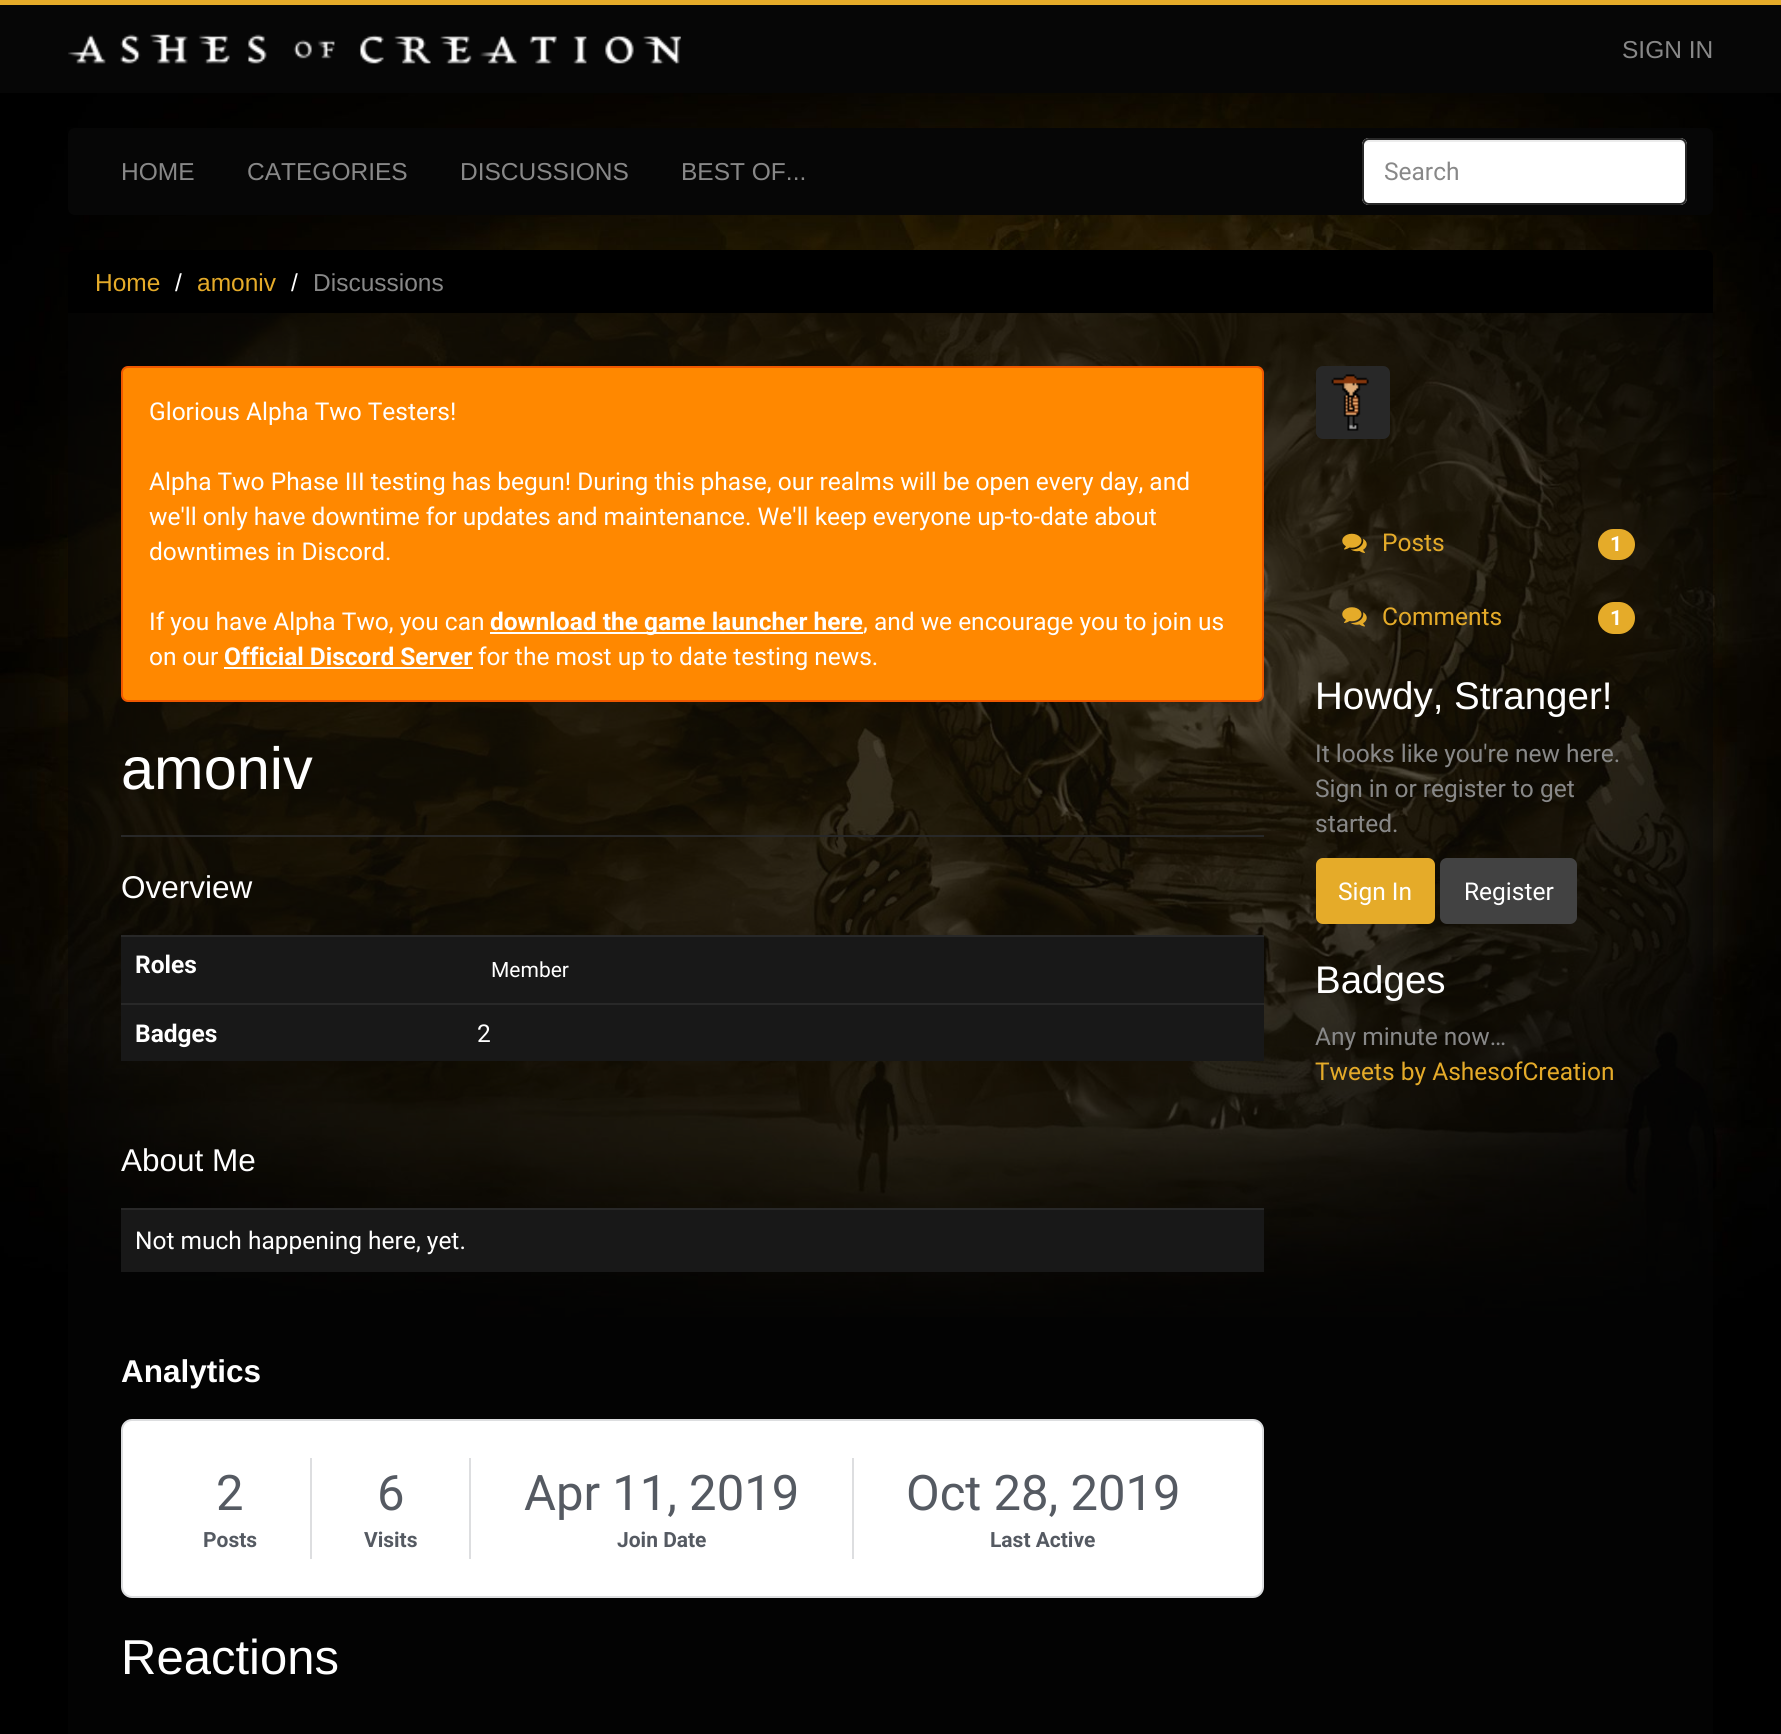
#include <cairo/cairo.h>
#include <math.h>
#include <stddef.h>

static cairo_t *cr;

static void use_color(int r, int g, int b) {
  cairo_set_source_rgb(cr, r / 255.0, g / 255.0, b / 255.0);
}

static void text(double x, double y, const char *s, const char *family, double size, int italic, int bold, int r, int g, int b) {
  cairo_select_font_face(cr, family, italic ? CAIRO_FONT_SLANT_ITALIC : CAIRO_FONT_SLANT_NORMAL,
    bold ? CAIRO_FONT_WEIGHT_BOLD : CAIRO_FONT_WEIGHT_NORMAL);
  cairo_set_font_size(cr, size);
  use_color(r, g, b);
  cairo_move_to(cr, x, y);
  cairo_show_text(cr, s);
}

static void box(double x, double y, double w, double h, int r, int g, int b) {
  use_color(r, g, b);
  cairo_rectangle(cr, x, y, w, h);
  cairo_fill(cr);
}

static void round_rect(double x, double y, double w, double h, double r) {
  cairo_new_sub_path(cr);
  cairo_arc(cr, x + w - r, y + h - r, r, 0, M_PI / 2);
  cairo_arc(cr, x + r, y + h - r, r, M_PI / 2, M_PI);
  cairo_arc(cr, x + r, y + r, r, M_PI, 1.5 * M_PI);
  cairo_arc(cr, x + w - r, y + r, r, 1.5 * M_PI, 2 * M_PI);
  cairo_close_path(cr);
}

static void picture(const char *path, double x, double y, double w, double h) {
  cairo_surface_t *image = cairo_image_surface_create_from_png(path);
  cairo_save(cr);
  cairo_set_source_surface(cr, image, x, y);
  cairo_rectangle(cr, x, y, w, h);
  cairo_fill(cr);
  cairo_restore(cr);
  cairo_surface_destroy(image);
}

static void draw(void) {
  use_color(0, 0, 0);
  cairo_paint(cr);
  picture("img_01.png", 0, 93, 1781, 1224);
  box(0, 5, 1781, 88, 6, 6, 6);
  box(0, 0, 1781, 5, 229, 171, 41);
  picture("img_02.png", 68, 34, 613, 30);
  use_color(6, 6, 6);
  round_rect(68, 128, 1645, 87, 7);
  cairo_fill(cr);
  use_color(255, 255, 255);
  round_rect(1362, 138, 325, 67, 7);
  cairo_fill(cr);
  use_color(236, 236, 236);
  cairo_new_path(cr);
  cairo_move_to(cr, 1368, 142);
  cairo_line_to(cr, 1680, 142);
  cairo_curve_to(cr, 1683, 142, 1685, 144, 1685, 147);
  cairo_line_to(cr, 1685, 145);
  cairo_curve_to(cr, 1685, 142, 1683, 140, 1680, 140);
  cairo_line_to(cr, 1368, 140);
  cairo_curve_to(cr, 1365, 140, 1363, 142, 1363, 145);
  cairo_line_to(cr, 1363, 147);
  cairo_curve_to(cr, 1363, 144, 1366, 142, 1368, 142);
  cairo_close_path(cr);
  cairo_fill(cr);
  round_rect(1363, 139, 323, 65, 6);
  use_color(40, 40, 40);
  cairo_stroke(cr);
  use_color(0, 0, 0);
  cairo_new_path(cr);
  cairo_move_to(cr, 75, 250);
  cairo_line_to(cr, 1706, 250);
  cairo_curve_to(cr, 1710, 250, 1713, 253, 1713, 257);
  cairo_line_to(cr, 1713, 313);
  cairo_line_to(cr, 68, 313);
  cairo_line_to(cr, 68, 257);
  cairo_curve_to(cr, 68, 253, 71, 250, 75, 250);
  cairo_close_path(cr);
  cairo_fill(cr);
  cairo_set_source_rgba(cr, 0.024, 0.024, 0.024, 0.5);
  cairo_rectangle(cr, 68, 313, 1645, 1421);
  cairo_fill(cr);
  use_color(255, 136, 0);
  round_rect(122, 367, 1141, 334, 6);
  cairo_fill_preserve(cr);
  use_color(240, 88, 0);
  cairo_stroke(cr);
  box(490, 632, 373, 2, 255, 255, 255);
  box(224, 667, 249, 2, 255, 255, 255);
  box(121, 835, 1143, 2, 40, 40, 40);
  box(121, 937, 1143, 124, 24, 24, 24);
  box(121, 935, 1143, 2, 40, 40, 40);
  box(121, 1003, 1143, 2, 40, 40, 40);
  box(121, 1210, 1143, 62, 24, 24, 24);
  box(121, 1208, 1143, 2, 40, 40, 40);
  use_color(255, 255, 255);
  round_rect(122, 1420, 1141, 177, 10);
  cairo_fill_preserve(cr);
  use_color(221, 222, 224);
  cairo_stroke(cr);
  box(310, 1458, 2, 101, 221, 222, 224);
  box(469, 1458, 2, 101, 221, 222, 224);
  box(852, 1458, 2, 101, 221, 222, 224);
  use_color(40, 40, 40);
  round_rect(1317, 367, 72, 71, 6);
  cairo_fill_preserve(cr);
  cairo_stroke(cr);
  picture("img_03.png", 1331, 374, 38, 57);
  picture("img_04.png", 1342, 533, 25, 20);
  use_color(229, 171, 41);
  round_rect(1598, 529, 37, 31, 15.5);
  cairo_fill(cr);
  picture("img_05.png", 1342, 607, 25, 20);
  round_rect(1598, 602, 37, 32, 16);
  cairo_fill(cr);
  round_rect(1317, 859, 117, 64, 6);
  cairo_fill_preserve(cr);
  cairo_stroke(cr);
  use_color(66, 66, 66);
  round_rect(1441, 859, 135, 64, 6);
  cairo_fill_preserve(cr);
  cairo_stroke(cr);
  text(1622, 58, "SIGN IN", "Liberation Sans", 24.5, 0, 0, 136, 136, 136);
  text(121, 180, "HOME", "Liberation Sans", 24.5, 0, 0, 136, 136, 136);
  text(247, 180, "CATEGORIES", "Liberation Sans", 24.5, 0, 0, 136, 136, 136);
  text(460, 180, "DISCUSSIONS", "Liberation Sans", 24.5, 0, 0, 136, 136, 136);
  text(681, 180, "BEST OF...", "Liberation Sans", 24.5, 0, 0, 136, 136, 136);
  text(1384, 180, "Search", "Roboto", 24.5, 0, 0, 136, 136, 136);
  text(95, 291, "Home", "Liberation Sans", 24.5, 0, 0, 229, 171, 41);
  text(175, 291, "/", "Liberation Sans", 24.5, 0, 0, 255, 255, 255);
  text(197, 291, "amoniv", "Liberation Sans", 24.5, 0, 0, 229, 171, 41);
  text(291, 291, "/", "Liberation Sans", 24.5, 0, 0, 255, 255, 255);
  text(313, 291, "Discussions", "Liberation Sans", 24.5, 0, 0, 136, 136, 136);
  text(149, 420, "Glorious Alpha Two Testers!", "Roboto", 24.5, 0, 0, 255, 255, 255);
  text(149, 490, "Alpha Two Phase III testing has begun! During this phase, our realms will be open every day, and", "Roboto", 24.5, 0, 0, 255, 255, 255);
  text(149, 525, "we'll only have downtime for updates and maintenance. We'll keep everyone up-to-date about", "Roboto", 24.5, 0, 0, 255, 255, 255);
  text(149, 560, "downtimes in Discord.", "Roboto", 24.5, 0, 0, 255, 255, 255);
  text(149, 630, "If you have Alpha Two, you can", "Roboto", 24.5, 0, 0, 255, 255, 255);
  text(490, 630, "download the game launcher here", "Roboto", 24.5, 0, 1, 255, 255, 255);
  text(863, 630, ", and we encourage you to join us", "Roboto", 24.5, 0, 0, 255, 255, 255);
  text(149, 665, "on our", "Roboto", 24.5, 0, 0, 255, 255, 255);
  text(224, 665, "Official Discord Server", "Roboto", 24.5, 0, 1, 255, 255, 255);
  text(478, 665, "for the most up to date testing news.", "Roboto", 24.5, 0, 0, 255, 255, 255);
  text(121, 789, "amoniv", "Liberation Sans", 59.5, 0, 0, 255, 255, 255);
  text(121, 898, "Overview", "Liberation Sans", 31.5, 0, 0, 255, 255, 255);
  text(135, 973, "Roles", "Roboto", 24.5, 0, 1, 255, 255, 255);
  text(491, 977, "Member", "Roboto", 21, 0, 0, 255, 255, 255);
  text(135, 1042, "Badges", "Roboto", 24.5, 0, 1, 255, 255, 255);
  text(477, 1042, "2", "Roboto", 24.5, 0, 0, 255, 255, 255);
  text(121, 1171, "About Me", "Liberation Sans", 31.5, 0, 0, 255, 255, 255);
  text(135, 1249, "Not much happening here, yet.", "Roboto", 24.5, 0, 0, 255, 255, 255);
  text(121, 1382, "Analytics", "Liberation Sans", 31.5, 0, 1, 255, 255, 255);
  text(216, 1510, "2", "Roboto", 49, 0, 0, 85, 90, 98);
  text(203, 1547, "Posts", "Roboto", 21, 0, 1, 85, 90, 98);
  text(377, 1510, "6", "Roboto", 49, 0, 0, 85, 90, 98);
  text(364, 1547, "Visits", "Roboto", 21, 0, 1, 85, 90, 98);
  text(524, 1510, "Apr 11, 2019", "Roboto", 49, 0, 0, 85, 90, 98);
  text(617, 1547, "Join Date", "Roboto", 21, 0, 1, 85, 90, 98);
  text(906, 1510, "Oct 28, 2019", "Roboto", 49, 0, 0, 85, 90, 98);
  text(990, 1547, "Last Active", "Roboto", 21, 0, 1, 85, 90, 98);
  text(121, 1674, "Reactions", "Liberation Sans", 49, 0, 0, 255, 255, 255);
  text(1382, 551, "Posts", "Roboto", 24.5, 0, 0, 229, 171, 41);
  text(1610, 551, "1", "Roboto", 21, 0, 1, 255, 255, 255);
  text(1382, 625, "Comments", "Roboto", 24.5, 0, 0, 229, 171, 41);
  text(1610, 625, "1", "Roboto", 21, 0, 1, 255, 255, 255);
  text(1315, 709, "Howdy, Stranger!", "Liberation Sans", 38.5, 0, 0, 255, 255, 255);
  text(1315, 762, "It looks like you're new here.", "Roboto", 24.5, 0, 0, 136, 136, 136);
  text(1315, 797, "Sign in or register to get", "Roboto", 24.5, 0, 0, 136, 136, 136);
  text(1315, 832, "started.", "Roboto", 24.5, 0, 0, 136, 136, 136);
  text(1338, 900, "Sign In", "Roboto", 24.5, 0, 0, 255, 255, 255);
  text(1464, 900, "Register", "Roboto", 24.5, 0, 0, 255, 255, 255);
  text(1315, 993, "Badges", "Liberation Sans", 38.5, 0, 0, 255, 255, 255);
  text(1315, 1045, "Any minute now…", "Roboto", 24.5, 0, 0, 136, 136, 136);
  text(1315, 1080, "Tweets by AshesofCreation", "Roboto", 24.5, 0, 0, 229, 171, 41);
}

int main(void) {
  cairo_surface_t *surface = cairo_image_surface_create(CAIRO_FORMAT_RGB24, 1781, 1734);
  cr = cairo_create(surface);
  cairo_font_options_t *options = cairo_font_options_create();
  cairo_font_options_set_hint_metrics(options, CAIRO_HINT_METRICS_OFF);
  cairo_font_options_set_hint_style(options, CAIRO_HINT_STYLE_NONE);
  cairo_set_font_options(cr, options);
  cairo_set_miter_limit(cr, 4);
  draw();
  cairo_surface_write_to_png(surface, "out.png");
  cairo_font_options_destroy(options);
  cairo_destroy(cr);
  cairo_surface_destroy(surface);
  return 0;
}
